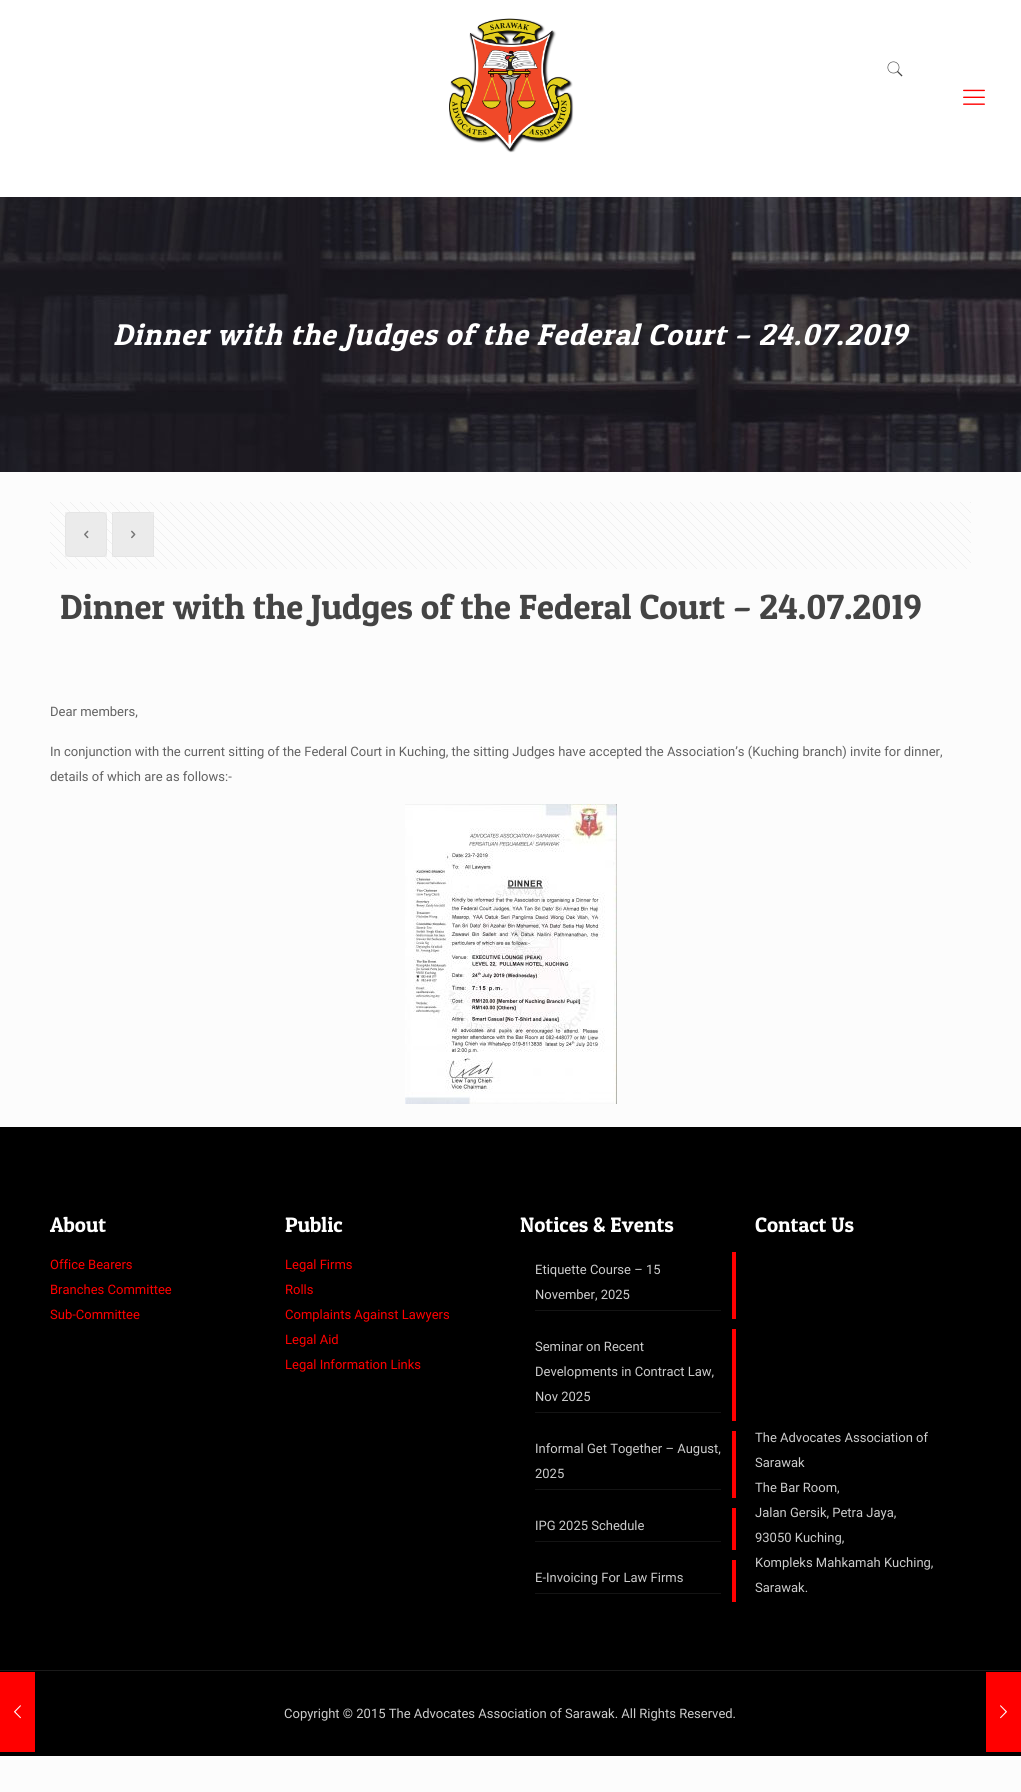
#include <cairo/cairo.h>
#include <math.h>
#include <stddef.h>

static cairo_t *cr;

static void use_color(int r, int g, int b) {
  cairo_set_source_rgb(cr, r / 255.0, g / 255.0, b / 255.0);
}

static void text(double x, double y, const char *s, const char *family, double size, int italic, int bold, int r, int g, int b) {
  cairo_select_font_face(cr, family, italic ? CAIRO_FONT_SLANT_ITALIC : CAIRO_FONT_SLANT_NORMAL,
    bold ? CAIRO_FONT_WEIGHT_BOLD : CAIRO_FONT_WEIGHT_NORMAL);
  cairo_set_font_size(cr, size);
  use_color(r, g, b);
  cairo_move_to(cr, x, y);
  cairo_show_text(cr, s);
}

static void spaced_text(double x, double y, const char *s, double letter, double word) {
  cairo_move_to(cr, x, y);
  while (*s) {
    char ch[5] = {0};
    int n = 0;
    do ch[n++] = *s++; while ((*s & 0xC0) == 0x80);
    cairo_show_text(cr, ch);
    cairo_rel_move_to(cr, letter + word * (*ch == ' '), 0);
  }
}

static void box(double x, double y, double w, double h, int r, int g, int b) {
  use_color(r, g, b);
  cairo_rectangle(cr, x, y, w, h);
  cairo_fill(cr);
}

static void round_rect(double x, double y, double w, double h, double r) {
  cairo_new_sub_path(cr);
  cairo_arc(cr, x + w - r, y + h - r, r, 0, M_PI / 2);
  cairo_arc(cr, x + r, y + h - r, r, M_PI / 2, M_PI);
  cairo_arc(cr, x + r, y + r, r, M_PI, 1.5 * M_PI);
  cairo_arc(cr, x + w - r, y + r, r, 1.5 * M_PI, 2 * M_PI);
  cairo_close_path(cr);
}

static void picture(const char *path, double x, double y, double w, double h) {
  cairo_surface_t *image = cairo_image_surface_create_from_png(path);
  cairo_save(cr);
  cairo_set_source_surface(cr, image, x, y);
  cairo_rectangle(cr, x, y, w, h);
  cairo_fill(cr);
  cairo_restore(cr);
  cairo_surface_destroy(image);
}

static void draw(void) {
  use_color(252, 252, 252);
  cairo_paint(cr);
  box(0, 1127, 1021, 629, 0, 0, 0);
  box(0, 1672, 35, 80, 255, 0, 0);
  picture("img_01.png", 14, 1705, 7, 14);
  picture("img_02.png", 0, 197, 1021, 275);
  box(0, 0, 1021, 197, 255, 255, 255);
  picture("img_03.png", 449, 18, 125, 135);
  picture("img_04.png", 963, 89, 22, 16);
  picture("img_05.png", 887, 61, 16, 16);
  picture("img_06.png", 50, 502, 921, 67);
  use_color(247, 247, 247);
  round_rect(65.5, 512.5, 41, 44, 4.5);
  cairo_fill_preserve(cr);
  use_color(240, 240, 240);
  cairo_set_line_width(cr, 1);
  cairo_stroke(cr);
  picture("img_07.png", 84, 530, 5, 9);
  cairo_set_source_rgba(cr, 0, 0, 0, 0.05);
  cairo_rectangle(cr, 65, 512, 42, 45);
  cairo_fill(cr);
  use_color(247, 247, 247);
  round_rect(112, 512, 42, 45, 5);
  cairo_fill(cr);
  cairo_rectangle(cr, 112.5, 512.5, 41, 44);
  cairo_set_source_rgba(cr, 0, 0, 0, 0.03);
  cairo_stroke(cr);
  picture("img_08.png", 131, 530, 5, 9);
  cairo_set_source_rgba(cr, 0, 0, 0, 0.05);
  cairo_rectangle(cr, 112, 512, 42, 45);
  cairo_fill(cr);
  picture("img_09.png", 405, 804, 212, 300);
  box(535, 1310, 186, 1, 20, 20, 20);
  box(732, 1252, 4, 67, 255, 0, 0);
  box(535, 1412, 186, 1, 20, 20, 20);
  box(732, 1329, 4, 92, 255, 0, 0);
  box(535, 1489, 186, 1, 20, 20, 20);
  box(732, 1431, 4, 67, 255, 0, 0);
  box(535, 1541, 186, 1, 20, 20, 20);
  box(732, 1508, 4, 42, 255, 0, 0);
  box(535, 1593, 186, 1, 20, 20, 20);
  box(732, 1560, 4, 42, 255, 0, 0);
  box(0, 1670, 1021, 1, 26, 26, 26);
  box(986, 1672, 35, 80, 255, 0, 0);
  picture("img_10.png", 1000, 1705, 7, 14);
  cairo_select_font_face(cr, "Patua One", CAIRO_FONT_SLANT_ITALIC, CAIRO_FONT_WEIGHT_NORMAL);
  cairo_set_font_size(cr, 30);
  use_color(255, 255, 255);
  spaced_text(113, 345, "Dinner with the Judges of the Federal Court – 24.07.2019", 1, 0);
  text(60, 619, "Dinner with the Judges of the Federal Court – 24.07.2019", "Patua One", 35, 0, 0, 68, 68, 68);
  text(50, 716, "Dear members,", "Roboto", 13, 0, 0, 98, 98, 98);
  text(50, 756, "In conjunction with the current sitting of the Federal Court in Kuching, the sitting Judges have accepted the Association’s (Kuching branch) invite for dinner,", "Roboto", 13, 0, 0, 98, 98, 98);
  text(50, 781, "details of which are as follows:-", "Roboto", 13, 0, 0, 98, 98, 98);
  text(50, 1232, "About", "Patua One", 21, 0, 0, 255, 255, 255);
  text(50, 1269, "Office Bearers", "Roboto", 13, 0, 0, 255, 0, 0);
  text(50, 1294, "Branches Committee", "Roboto", 13, 0, 0, 255, 0, 0);
  text(50, 1319, "Sub-Committee", "Roboto", 13, 0, 0, 255, 0, 0);
  text(285, 1232, "Public", "Patua One", 21, 0, 0, 255, 255, 255);
  text(285, 1269, "Legal Firms", "Roboto", 13, 0, 0, 255, 0, 0);
  text(285, 1294, "Rolls", "Roboto", 13, 0, 0, 255, 0, 0);
  text(285, 1319, "Complaints Against Lawyers", "Roboto", 13, 0, 0, 255, 0, 0);
  text(285, 1344, "Legal Aid", "Roboto", 13, 0, 0, 255, 0, 0);
  text(285, 1369, "Legal Information Links", "Roboto", 13, 0, 0, 255, 0, 0);
  text(520, 1232, "Notices & Events", "Patua One", 21, 0, 0, 255, 255, 255);
  text(535, 1274, "Etiquette Course – 15", "Roboto", 13, 0, 0, 204, 204, 204);
  text(535, 1299, "November, 2025", "Roboto", 13, 0, 0, 204, 204, 204);
  text(535, 1351, "Seminar on Recent", "Roboto", 13, 0, 0, 204, 204, 204);
  text(535, 1376, "Developments in Contract Law,", "Roboto", 13, 0, 0, 204, 204, 204);
  text(535, 1401, "Nov 2025", "Roboto", 13, 0, 0, 204, 204, 204);
  text(535, 1453, "Informal Get Together – August,", "Roboto", 13, 0, 0, 204, 204, 204);
  text(535, 1478, "2025", "Roboto", 13, 0, 0, 204, 204, 204);
  text(535, 1530, "IPG 2025 Schedule", "Roboto", 13, 0, 0, 204, 204, 204);
  text(535, 1582, "E-Invoicing For Law Firms", "Roboto", 13, 0, 0, 204, 204, 204);
  text(755, 1232, "Contact Us", "Patua One", 21, 0, 0, 255, 255, 255);
  text(755, 1442, "The Advocates Association of", "Roboto", 13, 0, 0, 204, 204, 204);
  text(755, 1467, "Sarawak", "Roboto", 13, 0, 0, 204, 204, 204);
  text(755, 1492, "The Bar Room,", "Roboto", 13, 0, 0, 204, 204, 204);
  text(755, 1517, "Jalan Gersik, Petra Jaya,", "Roboto", 13, 0, 0, 204, 204, 204);
  text(755, 1542, "93050 Kuching,", "Roboto", 13, 0, 0, 204, 204, 204);
  text(755, 1567, "Kompleks Mahkamah Kuching,", "Roboto", 13, 0, 0, 204, 204, 204);
  text(755, 1592, "Sarawak.", "Roboto", 13, 0, 0, 204, 204, 204);
  text(284, 1718, "Copyright © 2015 The Advocates Association of Sarawak. All Rights Reserved.", "Roboto", 13, 0, 0, 204, 204, 204);
}

int main(void) {
  cairo_surface_t *surface = cairo_image_surface_create(CAIRO_FORMAT_RGB24, 1021, 1792);
  cr = cairo_create(surface);
  cairo_font_options_t *options = cairo_font_options_create();
  cairo_font_options_set_hint_metrics(options, CAIRO_HINT_METRICS_OFF);
  cairo_font_options_set_hint_style(options, CAIRO_HINT_STYLE_NONE);
  cairo_set_font_options(cr, options);
  cairo_set_miter_limit(cr, 4);
  draw();
  cairo_surface_write_to_png(surface, "out.png");
  cairo_font_options_destroy(options);
  cairo_destroy(cr);
  cairo_surface_destroy(surface);
  return 0;
}
